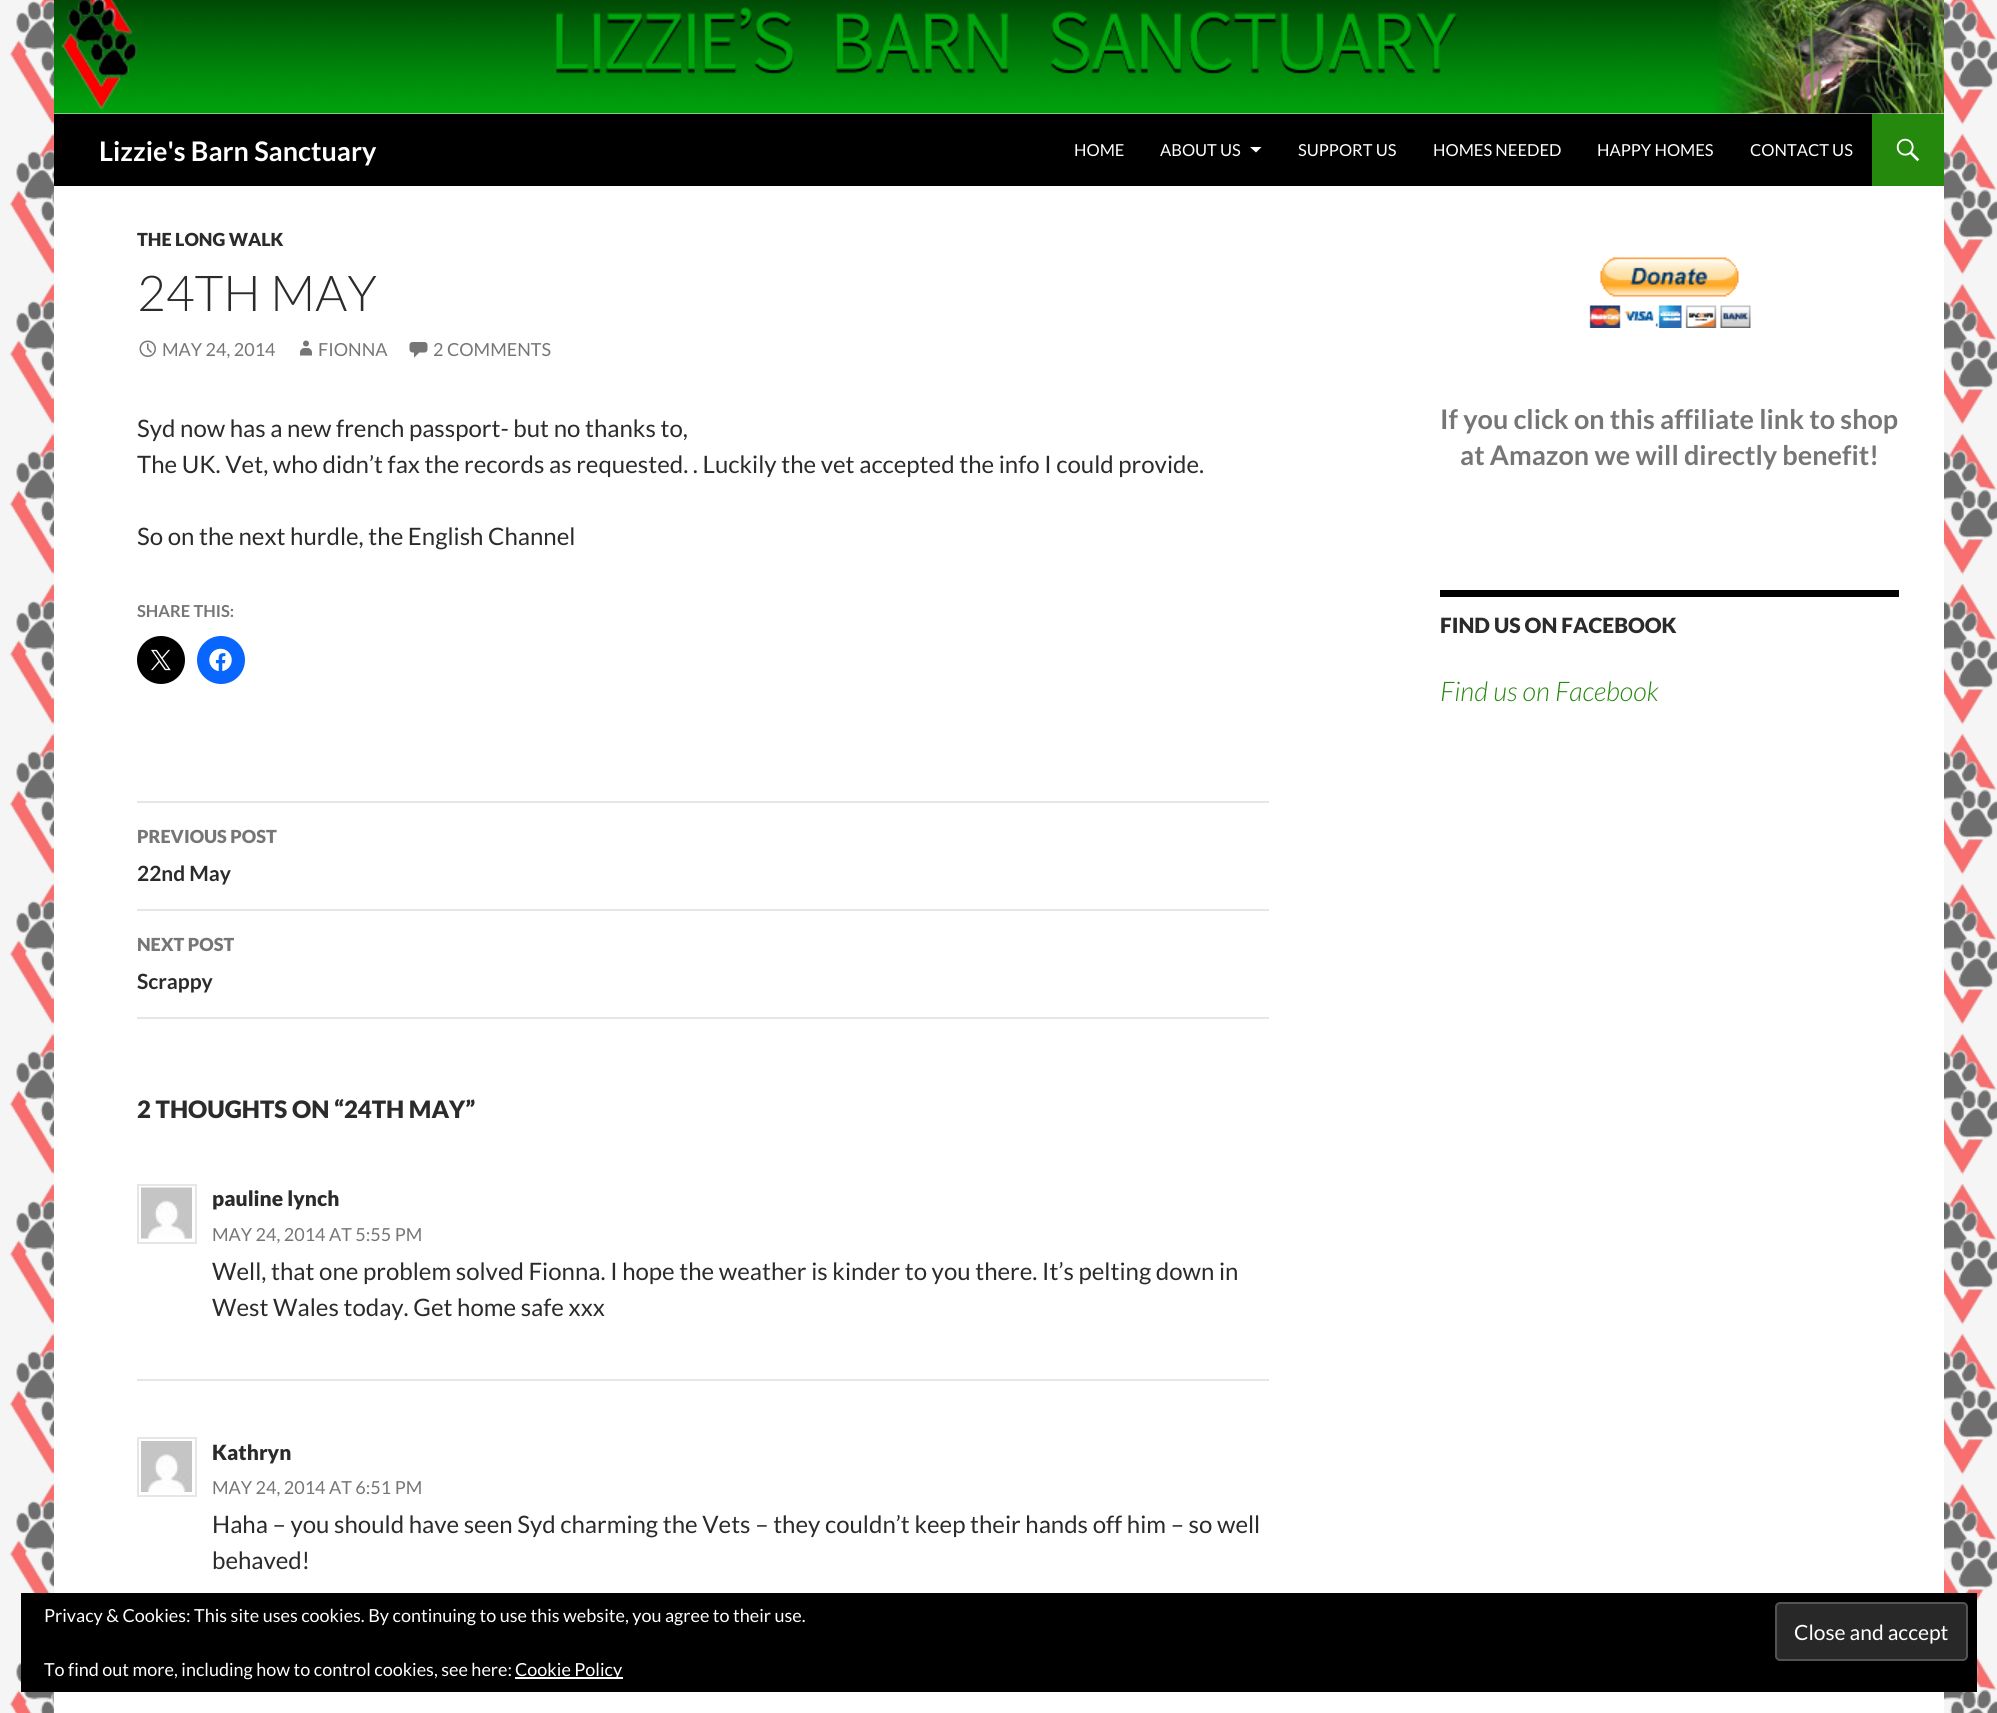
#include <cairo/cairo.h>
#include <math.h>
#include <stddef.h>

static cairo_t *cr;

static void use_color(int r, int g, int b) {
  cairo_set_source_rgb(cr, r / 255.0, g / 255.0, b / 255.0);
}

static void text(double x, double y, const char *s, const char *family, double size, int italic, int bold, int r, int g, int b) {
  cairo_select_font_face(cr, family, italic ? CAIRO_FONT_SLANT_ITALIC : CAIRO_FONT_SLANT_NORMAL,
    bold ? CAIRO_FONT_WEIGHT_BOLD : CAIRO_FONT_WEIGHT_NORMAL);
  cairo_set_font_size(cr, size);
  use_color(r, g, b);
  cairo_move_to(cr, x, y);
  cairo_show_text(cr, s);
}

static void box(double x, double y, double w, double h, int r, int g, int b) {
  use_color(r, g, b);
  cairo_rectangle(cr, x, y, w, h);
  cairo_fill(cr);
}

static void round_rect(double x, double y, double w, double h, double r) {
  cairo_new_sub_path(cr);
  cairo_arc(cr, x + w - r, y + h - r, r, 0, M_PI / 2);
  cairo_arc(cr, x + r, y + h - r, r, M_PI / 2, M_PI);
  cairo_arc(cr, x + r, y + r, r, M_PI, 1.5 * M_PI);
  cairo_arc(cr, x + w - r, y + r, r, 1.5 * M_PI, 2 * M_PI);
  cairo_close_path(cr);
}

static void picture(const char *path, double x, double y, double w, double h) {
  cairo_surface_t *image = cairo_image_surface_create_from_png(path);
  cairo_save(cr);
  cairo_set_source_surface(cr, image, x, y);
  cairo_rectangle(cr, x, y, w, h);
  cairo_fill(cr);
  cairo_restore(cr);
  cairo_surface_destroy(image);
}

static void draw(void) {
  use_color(245, 245, 245);
  cairo_paint(cr);
  picture("img_01.png", 9, 0, 1988, 1713);
  box(54, 113, 1890, 1600, 255, 255, 255);
  picture("img_02.png", 54, 0, 1890, 114);
  box(54, 114, 1818, 72, 0, 0, 0);
  use_color(255, 255, 255);
  cairo_new_path(cr);
  cairo_move_to(cr, 1250, 147);
  cairo_line_to(cr, 1261.5, 147);
  cairo_line_to(cr, 1256, 152.5);
  cairo_close_path(cr);
  cairo_fill(cr);
  box(1872, 114, 72, 72, 36, 137, 13);
  picture("img_03.png", 1896, 138, 24, 24);
  picture("img_04.png", 139, 340, 17, 17);
  picture("img_05.png", 300, 340, 12, 16);
  picture("img_06.png", 409, 342, 19, 16);
  use_color(0, 0, 0);
  cairo_arc(cr, 161, 660, 24, 0, 2 * M_PI);
  cairo_fill(cr);
  picture("img_07.png", 151, 649, 20, 22);
  use_color(8, 102, 255);
  cairo_arc(cr, 221, 660, 24, 0, 2 * M_PI);
  cairo_fill(cr);
  picture("img_08.png", 209, 648, 23, 24);
  box(137, 801, 1132, 2, 230, 230, 230);
  box(137, 909, 1132, 2, 230, 230, 230);
  box(137, 1017, 1132, 2, 230, 230, 230);
  cairo_rectangle(cr, 138, 1185, 58, 58);
  cairo_stroke(cr);
  picture("img_09.png", 141, 1187, 51, 52);
  box(137, 1379, 1132, 2, 230, 230, 230);
  cairo_rectangle(cr, 138, 1438, 58, 58);
  cairo_stroke(cr);
  picture("img_10.png", 141, 1441, 51, 51);
  picture("img_11.png", 1589, 257, 162, 71);
  box(1440, 590, 459, 7, 0, 0, 0);
  box(21, 1593, 1956, 99, 0, 0, 0);
  use_color(40, 40, 40);
  round_rect(1776, 1603, 191, 57, 4);
  cairo_fill_preserve(cr);
  use_color(83, 83, 83);
  cairo_stroke(cr);
  box(515, 1677, 108, 2, 255, 255, 255);
  text(99, 161, "Lizzie's Barn Sanctuary", "Lato", 27, 0, 1, 255, 255, 255);
  text(1074, 156, "HOME", "Lato", 16.5, 0, 0, 255, 255, 255);
  text(1160, 156, "ABOUT US", "Lato", 16.5, 0, 0, 255, 255, 255);
  text(1298, 156, "SUPPORT US", "Lato", 16.5, 0, 0, 255, 255, 255);
  text(1433, 156, "HOMES NEEDED", "Lato", 16.5, 0, 0, 255, 255, 255);
  text(1597, 156, "HAPPY HOMES", "Lato", 16.5, 0, 0, 255, 255, 255);
  text(1750, 156, "CONTACT US", "Lato", 16.5, 0, 0, 255, 255, 255);
  text(137, 246, "THE LONG WALK", "Lato Black", 18, 0, 0, 43, 43, 43);
  text(137, 311, "24TH MAY", "Lato Light", 49.5, 0, 0, 43, 43, 43);
  text(162, 356, "MAY 24, 2014", "Lato", 18, 0, 0, 118, 118, 118);
  text(318, 356, "FIONNA", "Lato", 18, 0, 0, 118, 118, 118);
  text(433, 356, "2 COMMENTS", "Lato", 18, 0, 0, 118, 118, 118);
  text(137, 437, "Syd now has a new french passport- but no thanks to,", "Lato", 24, 0, 0, 43, 43, 43);
  text(137, 473, "The UK. Vet, who didn’t fax the records as requested. . Luckily the vet accepted the info I could provide.", "Lato", 24, 0, 0, 43, 43, 43);
  text(137, 545, "So on the next hurdle, the English Channel", "Lato", 24, 0, 0, 43, 43, 43);
  text(137, 617, "SHARE THIS:", "Lato", 16.5, 0, 1, 118, 118, 118);
  text(137, 843, "PREVIOUS POST", "Lato Black", 18, 0, 0, 118, 118, 118);
  text(137, 881, "22nd May", "Lato", 21, 0, 1, 43, 43, 43);
  text(137, 951, "NEXT POST", "Lato Black", 18, 0, 0, 118, 118, 118);
  text(137, 989, "Scrappy", "Lato", 21, 0, 1, 43, 43, 43);
  text(137, 1118, "2 THOUGHTS ON “24TH MAY”", "Lato Black", 24, 0, 0, 43, 43, 43);
  text(212, 1206, "pauline lynch", "Lato Black", 21, 0, 0, 43, 43, 43);
  text(212, 1241, "MAY 24, 2014 AT 5:55 PM", "Lato", 18, 0, 0, 118, 118, 118);
  text(212, 1280, "Well, that one problem solved Fionna. I hope the weather is kinder to you there. It’s pelting down in", "Lato", 24, 0, 0, 43, 43, 43);
  text(212, 1316, "West Wales today. Get home safe xxx", "Lato", 24, 0, 0, 43, 43, 43);
  text(212, 1460, "Kathryn", "Lato Black", 21, 0, 0, 43, 43, 43);
  text(212, 1494, "MAY 24, 2014 AT 6:51 PM", "Lato", 18, 0, 0, 118, 118, 118);
  text(212, 1533, "Haha – you should have seen Syd charming the Vets – they couldn’t keep their hands off him – so well", "Lato", 24, 0, 0, 43, 43, 43);
  text(212, 1569, "behaved!", "Lato", 24, 0, 0, 43, 43, 43);
  text(1440, 429, "If you click on this affiliate link to shop", "Lato", 27, 0, 1, 118, 118, 118);
  text(1460, 465, "at Amazon we will directly benefit!", "Lato", 27, 0, 1, 118, 118, 118);
  text(1440, 633, "FIND US ON FACEBOOK", "Lato Black", 21, 0, 0, 43, 43, 43);
  text(1440, 701, "Find us on Facebook", "Lato Light", 27, 1, 0, 36, 137, 13);
  text(44, 1622, "Privacy & Cookies: This site uses cookies. By continuing to use this website, you agree to their use.", "Lato", 18, 0, 0, 255, 255, 255);
  text(1794, 1640, "Close and accept", "Lato", 21, 0, 0, 255, 255, 255);
  text(44, 1676, "To find out more, including how to control cookies, see here:", "Lato", 18, 0, 0, 255, 255, 255);
  text(515, 1676, "Cookie Policy", "Lato", 18, 0, 0, 255, 255, 255);
}

int main(void) {
  cairo_surface_t *surface = cairo_image_surface_create(CAIRO_FORMAT_RGB24, 1997, 1713);
  cr = cairo_create(surface);
  cairo_font_options_t *options = cairo_font_options_create();
  cairo_font_options_set_hint_metrics(options, CAIRO_HINT_METRICS_OFF);
  cairo_font_options_set_hint_style(options, CAIRO_HINT_STYLE_NONE);
  cairo_set_font_options(cr, options);
  cairo_set_miter_limit(cr, 4);
  draw();
  cairo_surface_write_to_png(surface, "out.png");
  cairo_font_options_destroy(options);
  cairo_destroy(cr);
  cairo_surface_destroy(surface);
  return 0;
}
